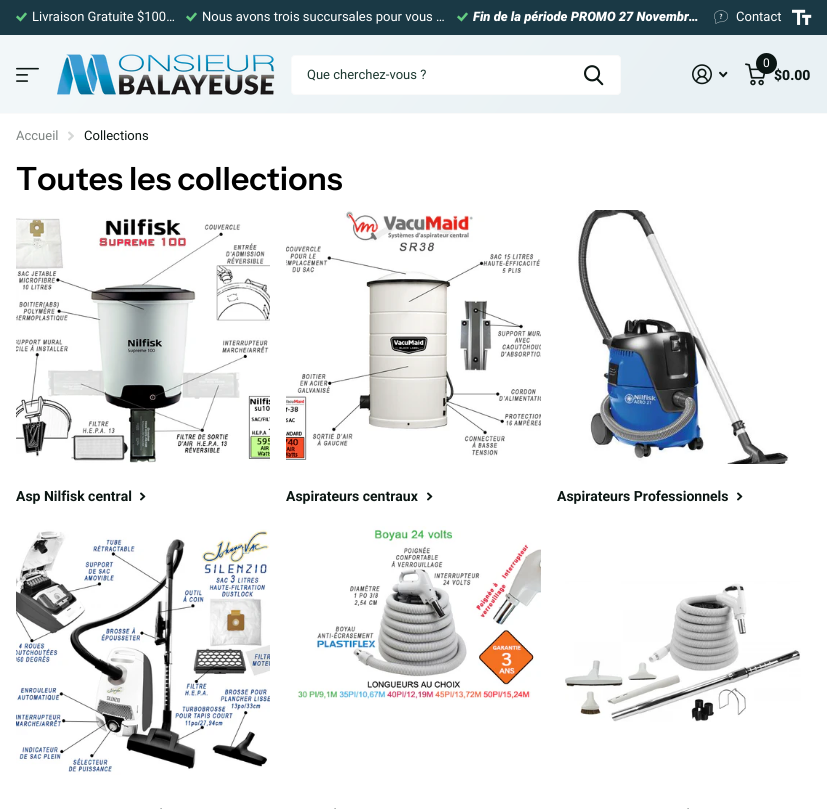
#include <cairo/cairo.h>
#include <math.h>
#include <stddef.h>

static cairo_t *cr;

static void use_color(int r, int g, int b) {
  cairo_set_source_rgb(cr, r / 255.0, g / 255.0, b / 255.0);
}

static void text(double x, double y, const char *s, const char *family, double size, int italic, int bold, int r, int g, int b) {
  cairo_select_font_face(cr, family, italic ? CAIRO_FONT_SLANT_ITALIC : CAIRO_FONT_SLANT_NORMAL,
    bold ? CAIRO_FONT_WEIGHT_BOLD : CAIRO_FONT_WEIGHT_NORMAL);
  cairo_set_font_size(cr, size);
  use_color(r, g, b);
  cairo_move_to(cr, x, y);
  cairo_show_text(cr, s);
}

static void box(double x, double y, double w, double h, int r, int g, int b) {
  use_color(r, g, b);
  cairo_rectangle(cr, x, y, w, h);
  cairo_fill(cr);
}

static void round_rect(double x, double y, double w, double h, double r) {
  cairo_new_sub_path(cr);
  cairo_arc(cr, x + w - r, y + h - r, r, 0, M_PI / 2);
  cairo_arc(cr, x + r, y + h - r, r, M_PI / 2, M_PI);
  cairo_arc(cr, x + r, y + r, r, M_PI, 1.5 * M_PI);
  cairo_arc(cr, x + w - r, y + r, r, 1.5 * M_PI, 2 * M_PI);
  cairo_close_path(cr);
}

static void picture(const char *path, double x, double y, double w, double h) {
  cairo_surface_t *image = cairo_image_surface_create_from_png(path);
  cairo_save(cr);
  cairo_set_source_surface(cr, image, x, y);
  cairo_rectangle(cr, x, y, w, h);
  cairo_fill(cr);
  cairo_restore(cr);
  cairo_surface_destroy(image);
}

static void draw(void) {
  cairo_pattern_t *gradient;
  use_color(255, 255, 255);
  cairo_paint(cr);
  box(0, 0, 827, 35, 26, 57, 69);
  picture("img_01.png", 16, 12, 11, 10);
  picture("img_01.png", 186, 12, 11, 10);
  picture("img_01.png", 457, 12, 11, 10);
  picture("img_02.png", 714, 10, 14, 14);
  picture("img_03.png", 792, 9, 20, 16);
  gradient = cairo_pattern_create_linear(123, -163, 704, 276);
  cairo_pattern_add_color_stop_rgba(gradient, 0.11, 0.949, 0.969, 0.976, 1);
  cairo_pattern_add_color_stop_rgba(gradient, 0.81, 0.914, 0.945, 0.957, 1);
  cairo_set_source(cr, gradient);
  cairo_pattern_destroy(gradient);
  cairo_rectangle(cr, 0, 35, 827, 78);
  cairo_fill(cr);
  box(0, 113, 827, 1, 250, 250, 250);
  picture("img_04.png", 16, 67, 23, 15);
  picture("img_05.png", 57, 54, 218, 41);
  use_color(255, 255, 255);
  round_rect(291.5, 55.5, 329, 39, 3.5);
  cairo_fill_preserve(cr);
  use_color(250, 250, 250);
  cairo_set_line_width(cr, 1);
  cairo_stroke(cr);
  picture("img_06.png", 584, 65, 20, 21);
  picture("img_07.png", 692, 64, 20, 21);
  picture("img_08.png", 719, 71, 9, 7);
  picture("img_09.png", 745, 63, 21, 23);
  use_color(11, 22, 19);
  cairo_arc(cr, 766.5, 63.5, 10.5, 0, 2 * M_PI);
  cairo_fill(cr);
  cairo_set_source_rgba(cr, 0, 0, 0, 0.1);
  cairo_new_path(cr);
  cairo_move_to(cr, 775, 69.5);
  cairo_curve_to(cr, 773.5, 71, 771, 72, 768, 72);
  cairo_curve_to(cr, 759, 72, 756, 61.5, 760, 55.5);
  cairo_curve_to(cr, 755, 59, 754.5, 66.5, 759, 71);
  cairo_curve_to(cr, 763.5, 75.5, 771.5, 75, 775, 69.5);
  cairo_close_path(cr);
  cairo_fill(cr);
  picture("img_10.png", 68, 131, 6, 10);
  picture("img_11.png", 16, 217, 254, 246);
  picture("img_12.png", 140, 492, 6, 9);
  picture("img_13.png", 286, 211, 255, 249);
  picture("img_12.png", 427, 492, 6, 9);
  picture("img_14.png", 576, 210, 213, 254);
  picture("img_12.png", 737, 492, 6, 9);
  picture("img_15.png", 16, 529, 254, 246);
  picture("img_16.png", 160, 808, 2, 1);
  picture("img_17.png", 297, 526, 244, 174);
  picture("img_16.png", 334, 808, 2, 1);
  picture("img_18.png", 565, 581, 236, 141);
  picture("img_16.png", 687, 808, 2, 1);
  text(32, 21, "Livraison Gratuite $100…", "Roboto", 13, 0, 0, 255, 255, 255);
  text(202, 21, "Nous avons trois succursales pour vous …", "Roboto", 13, 0, 0, 255, 255, 255);
  text(473, 21, "Fin de la période PROMO 27 Novembr…", "Roboto Black", 13, 1, 0, 255, 255, 255);
  text(736, 21, "Contact", "Roboto", 13, 0, 0, 255, 255, 255);
  text(307, 79, "Que cherchez-vous ?", "Roboto", 13, 0, 0, 28, 56, 48);
  text(763, 67, "0", "Roboto", 12, 0, 0, 255, 255, 255);
  text(774, 80, "$0.00", "Roboto ExtraBold", 14, 0, 0, 11, 22, 19);
  text(16, 140, "Accueil", "Roboto", 13, 0, 0, 126, 132, 130);
  text(84, 140, "Collections", "Roboto", 13, 0, 0, 11, 22, 19);
  text(16, 190, "Toutes les collections", "Instrument Sans SemiBold", 32, 0, 0, 0, 0, 0);
  text(16, 501, "Asp Nilfisk central", "Roboto", 14, 0, 1, 11, 22, 19);
  text(286, 501, "Aspirateurs centraux", "Roboto", 14, 0, 1, 11, 22, 19);
  text(557, 501, "Aspirateurs Professionnels", "Roboto", 14, 0, 1, 11, 22, 19);
}

int main(void) {
  cairo_surface_t *surface = cairo_image_surface_create(CAIRO_FORMAT_RGB24, 827, 809);
  cr = cairo_create(surface);
  cairo_font_options_t *options = cairo_font_options_create();
  cairo_font_options_set_hint_metrics(options, CAIRO_HINT_METRICS_OFF);
  cairo_font_options_set_hint_style(options, CAIRO_HINT_STYLE_NONE);
  cairo_set_font_options(cr, options);
  cairo_set_miter_limit(cr, 4);
  draw();
  cairo_surface_write_to_png(surface, "out.png");
  cairo_font_options_destroy(options);
  cairo_destroy(cr);
  cairo_surface_destroy(surface);
  return 0;
}
